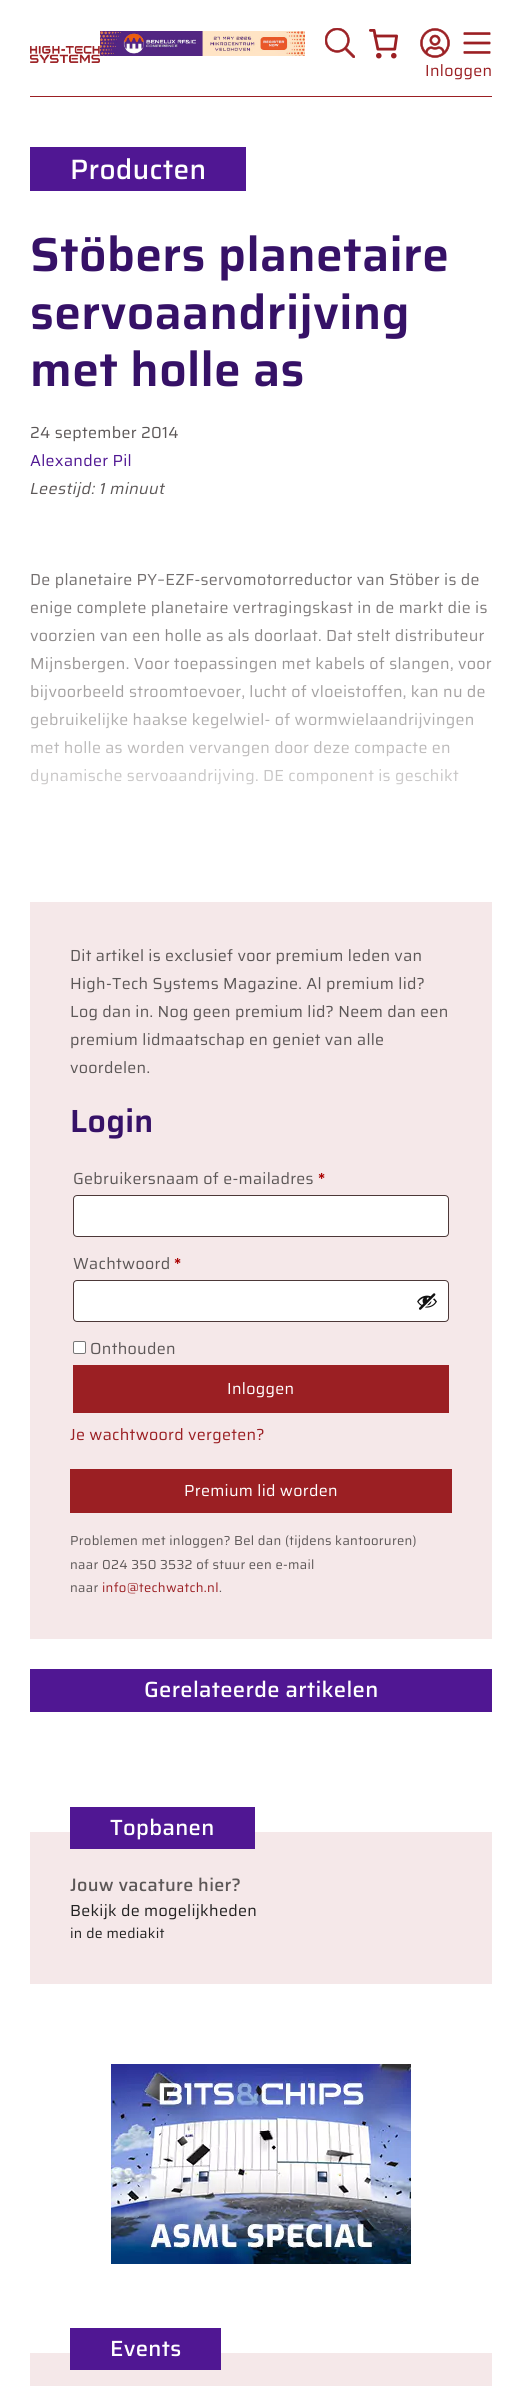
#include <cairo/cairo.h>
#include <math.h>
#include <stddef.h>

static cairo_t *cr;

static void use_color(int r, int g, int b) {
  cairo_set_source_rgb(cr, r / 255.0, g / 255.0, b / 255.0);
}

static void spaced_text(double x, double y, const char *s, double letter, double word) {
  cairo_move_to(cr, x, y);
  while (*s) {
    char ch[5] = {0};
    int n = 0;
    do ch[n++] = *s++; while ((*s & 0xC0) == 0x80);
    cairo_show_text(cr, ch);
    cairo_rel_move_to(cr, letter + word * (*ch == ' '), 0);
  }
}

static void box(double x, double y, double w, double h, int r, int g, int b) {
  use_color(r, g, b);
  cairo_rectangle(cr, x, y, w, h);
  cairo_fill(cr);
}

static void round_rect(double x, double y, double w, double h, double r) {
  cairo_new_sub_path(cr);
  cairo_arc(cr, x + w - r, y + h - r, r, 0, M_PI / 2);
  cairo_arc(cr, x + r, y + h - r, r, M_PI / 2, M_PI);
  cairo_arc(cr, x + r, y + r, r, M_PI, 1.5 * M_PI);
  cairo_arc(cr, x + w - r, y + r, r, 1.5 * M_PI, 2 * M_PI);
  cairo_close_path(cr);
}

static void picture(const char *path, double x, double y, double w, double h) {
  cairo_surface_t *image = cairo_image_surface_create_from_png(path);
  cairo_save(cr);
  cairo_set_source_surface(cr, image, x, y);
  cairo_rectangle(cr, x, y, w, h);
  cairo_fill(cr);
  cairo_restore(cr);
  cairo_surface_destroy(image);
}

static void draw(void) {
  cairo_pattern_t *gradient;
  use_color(255, 255, 255);
  cairo_paint(cr);
  picture("img_01.png", 30, 46, 70, 17);
  picture("img_02.png", 100, 31, 205, 25);
  picture("img_03.png", 325, 28, 30, 30);
  picture("img_04.png", 369, 29, 29, 30);
  picture("img_05.png", 420, 28, 30, 30);
  picture("img_06.png", 463, 32, 28, 22);
  box(30, 96, 462, 1, 155, 31, 35);
  box(30, 147, 216, 44, 80, 23, 147);
  box(30, 902, 462, 737, 245, 232, 233);
  use_color(255, 255, 255);
  round_rect(73, 1195, 376, 42, 4);
  cairo_fill(cr);
  round_rect(73.5, 1195.5, 375, 41, 3.5);
  cairo_set_source_rgba(cr, 0.125, 0.027, 0.027, 0.8);
  cairo_set_line_width(cr, 1);
  cairo_stroke(cr);
  use_color(255, 255, 255);
  round_rect(73, 1280, 376, 42, 4);
  cairo_fill(cr);
  round_rect(73.5, 1280.5, 375, 41, 3.5);
  cairo_set_source_rgba(cr, 0.125, 0.027, 0.027, 0.8);
  cairo_stroke(cr);
  picture("img_07.png", 417, 1293, 20, 17);
  use_color(255, 255, 255);
  round_rect(73.5, 1341.5, 12, 12, 1.5);
  cairo_fill_preserve(cr);
  use_color(118, 118, 118);
  cairo_stroke(cr);
  box(73, 1365, 376, 48, 155, 31, 35);
  box(70, 1469, 382, 44, 155, 31, 35);
  box(30, 1669, 462, 43, 80, 23, 147);
  box(30, 1832, 462, 152, 245, 232, 233);
  box(70, 1807, 185, 42, 80, 23, 147);
  picture("img_08.png", 111, 2064, 300, 200);
  box(30, 2353, 462, 33, 245, 232, 233);
  box(70, 2328, 151, 42, 80, 23, 147);
  cairo_select_font_face(cr, "Saira", CAIRO_FONT_SLANT_NORMAL, CAIRO_FONT_WEIGHT_NORMAL);
  cairo_set_font_size(cr, 16);
  use_color(155, 31, 35);
  spaced_text(425, 76, "Inloggen", 0.3, 0);
  cairo_select_font_face(cr, "Saira Medium", CAIRO_FONT_SLANT_NORMAL, CAIRO_FONT_WEIGHT_NORMAL);
  cairo_set_font_size(cr, 28);
  use_color(255, 255, 255);
  spaced_text(70, 179, "Producten", 0.3, 0);
  cairo_select_font_face(cr, "Saira SemiBold", CAIRO_FONT_SLANT_NORMAL, CAIRO_FONT_WEIGHT_NORMAL);
  cairo_set_font_size(cr, 48);
  use_color(54, 17, 103);
  spaced_text(30, 271, "Stöbers planetaire", 0.3, 0);
  spaced_text(30, 329, "servoaandrijving", 0.3, 0);
  spaced_text(30, 386, "met holle as", 0.3, 0);
  cairo_select_font_face(cr, "Saira", CAIRO_FONT_SLANT_NORMAL, CAIRO_FONT_WEIGHT_NORMAL);
  cairo_set_font_size(cr, 16);
  use_color(92, 87, 87);
  spaced_text(30, 438, "24 september 2014", 0.3, 0);
  use_color(80, 23, 147);
  spaced_text(30, 466, "Alexander Pil", 0.3, 0);
  cairo_select_font_face(cr, "Saira", CAIRO_FONT_SLANT_ITALIC, CAIRO_FONT_WEIGHT_NORMAL);
  use_color(92, 87, 87);
  spaced_text(30, 494, "Leestijd: 1 minuut", 0.3, 0);
  cairo_select_font_face(cr, "Saira", CAIRO_FONT_SLANT_NORMAL, CAIRO_FONT_WEIGHT_NORMAL);
  spaced_text(30, 585, "De planetaire PY–EZF-servomotorreductor van Stöber is de", 0.3, 0);
  spaced_text(30, 613, "enige complete planetaire vertragingskast in de markt die is", 0.3, 0);
  spaced_text(30, 641, "voorzien van een holle as als doorlaat. Dat stelt distributeur", 0.3, 0);
  spaced_text(30, 669, "Mijnsbergen. Voor toepassingen met kabels of slangen, voor", 0.3, 0);
  spaced_text(30, 697, "bijvoorbeeld stroomtoevoer, lucht of vloeistoffen, kan nu de", 0.3, 0);
  spaced_text(30, 725, "gebruikelijke haakse kegelwiel- of wormwielaandrijvingen", 0.3, 0);
  spaced_text(30, 753, "met holle as worden vervangen door deze compacte en", 0.3, 0);
  spaced_text(30, 781, "dynamische servoaandrijving. DE component is geschikt", 0.3, 0);
  gradient = cairo_pattern_create_linear(261, 523, 261, 902);
  cairo_pattern_add_color_stop_rgba(gradient, 0, 1, 1, 1, 0);
  cairo_pattern_add_color_stop_rgba(gradient, 1, 1, 1, 1, 1);
  cairo_set_source(cr, gradient);
  cairo_pattern_destroy(gradient);
  cairo_rectangle(cr, 30, 573, 462, 212);
  cairo_fill(cr);
  use_color(92, 87, 87);
  spaced_text(70, 961, "Dit artikel is exclusief voor premium leden van", 0.3, 0);
  spaced_text(70, 989, "High-Tech Systems Magazine. Al premium lid?", 0.3, 0);
  spaced_text(70, 1017, "Log dan in. Nog geen premium lid? Neem dan een", 0.3, 0);
  spaced_text(70, 1045, "premium lidmaatschap en geniet van alle", 0.3, 0);
  spaced_text(70, 1073, "voordelen.", 0.3, 0);
  cairo_select_font_face(cr, "Saira SemiBold", CAIRO_FONT_SLANT_NORMAL, CAIRO_FONT_WEIGHT_NORMAL);
  cairo_set_font_size(cr, 32);
  use_color(54, 17, 103);
  spaced_text(70, 1132, "Login", 0.3, 0);
  cairo_select_font_face(cr, "Saira", CAIRO_FONT_SLANT_NORMAL, CAIRO_FONT_WEIGHT_NORMAL);
  cairo_set_font_size(cr, 16);
  use_color(92, 87, 87);
  spaced_text(73, 1184, "Gebruikersnaam of e-mailadres", 0.3, 0);
  cairo_select_font_face(cr, "Saira", CAIRO_FONT_SLANT_NORMAL, CAIRO_FONT_WEIGHT_BOLD);
  use_color(170, 0, 0);
  spaced_text(318, 1184, "*", 0.3, 0);
  cairo_select_font_face(cr, "Saira", CAIRO_FONT_SLANT_NORMAL, CAIRO_FONT_WEIGHT_NORMAL);
  use_color(92, 87, 87);
  spaced_text(73, 1269, "Wachtwoord", 0.3, 0);
  cairo_select_font_face(cr, "Saira", CAIRO_FONT_SLANT_NORMAL, CAIRO_FONT_WEIGHT_BOLD);
  use_color(170, 0, 0);
  spaced_text(174, 1269, "*", 0.3, 0);
  cairo_select_font_face(cr, "Saira", CAIRO_FONT_SLANT_NORMAL, CAIRO_FONT_WEIGHT_NORMAL);
  use_color(92, 87, 87);
  spaced_text(90, 1354, "Onthouden", 0.3, 0);
  use_color(255, 255, 255);
  spaced_text(227, 1394, "Inloggen", 0.3, 0);
  use_color(155, 31, 35);
  spaced_text(70, 1440, "Je wachtwoord vergeten?", 0.3, 0);
  use_color(255, 255, 255);
  spaced_text(184, 1496, "Premium lid worden", 0.3, 0);
  cairo_set_font_size(cr, 13);
  use_color(92, 87, 87);
  spaced_text(70, 1545, "Problemen met inloggen? Bel dan (tijdens kantooruren)", 0.3, 0);
  spaced_text(70, 1569, "naar 024 350 3532 of stuur een e-mail", 0.3, 0);
  spaced_text(70, 1592, "naar", 0.3, 0);
  use_color(155, 31, 35);
  spaced_text(102, 1592, "info@techwatch.nl", 0.3, 0);
  use_color(92, 87, 87);
  spaced_text(219, 1592, ".", 0.3, 0);
  cairo_select_font_face(cr, "Saira Medium", CAIRO_FONT_SLANT_NORMAL, CAIRO_FONT_WEIGHT_NORMAL);
  cairo_set_font_size(cr, 22);
  use_color(255, 255, 255);
  spaced_text(144, 1697, "Gerelateerde artikelen", 0.3, 0);
  spaced_text(110, 1835, "Topbanen", 0.3, 0);
  cairo_set_font_size(cr, 18);
  use_color(92, 87, 87);
  spaced_text(70, 1891, "Jouw vacature hier?", 0.3, 0);
  cairo_select_font_face(cr, "Saira", CAIRO_FONT_SLANT_NORMAL, CAIRO_FONT_WEIGHT_NORMAL);
  cairo_set_font_size(cr, 16);
  use_color(34, 34, 34);
  spaced_text(70, 1916, "Bekijk de mogelijkheden", 0.3, 0);
  cairo_set_font_size(cr, 14);
  spaced_text(70, 1938, "in de mediakit", 0.3, 0);
  cairo_select_font_face(cr, "Saira Medium", CAIRO_FONT_SLANT_NORMAL, CAIRO_FONT_WEIGHT_NORMAL);
  cairo_set_font_size(cr, 22);
  use_color(255, 255, 255);
  spaced_text(110, 2356, "Events", 0.3, 0);
}

int main(void) {
  cairo_surface_t *surface = cairo_image_surface_create(CAIRO_FORMAT_RGB24, 522, 2386);
  cr = cairo_create(surface);
  cairo_font_options_t *options = cairo_font_options_create();
  cairo_font_options_set_hint_metrics(options, CAIRO_HINT_METRICS_OFF);
  cairo_font_options_set_hint_style(options, CAIRO_HINT_STYLE_NONE);
  cairo_set_font_options(cr, options);
  cairo_set_miter_limit(cr, 4);
  draw();
  cairo_surface_write_to_png(surface, "out.png");
  cairo_font_options_destroy(options);
  cairo_destroy(cr);
  cairo_surface_destroy(surface);
  return 0;
}
